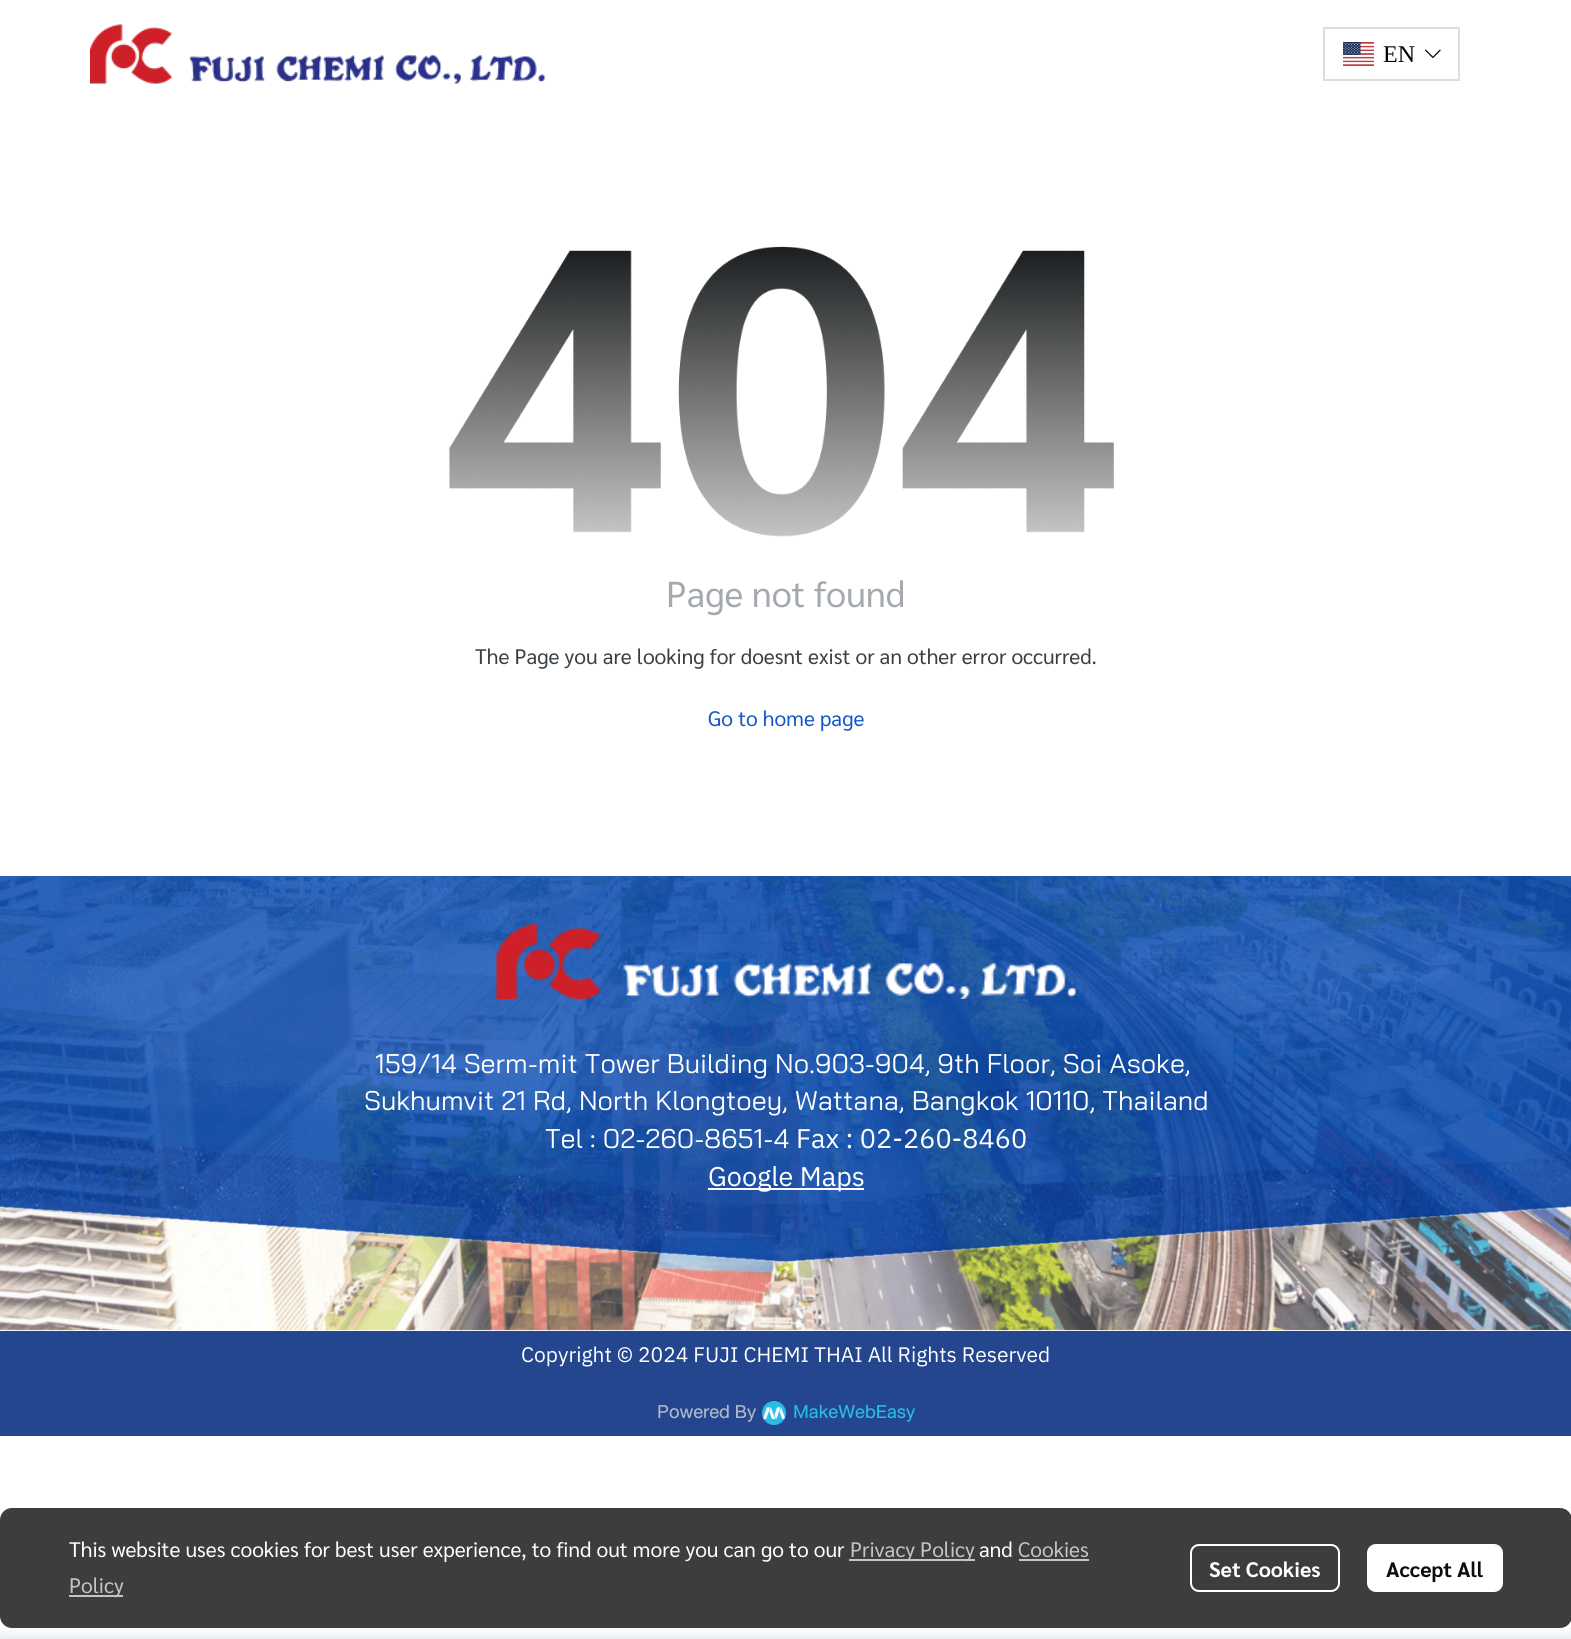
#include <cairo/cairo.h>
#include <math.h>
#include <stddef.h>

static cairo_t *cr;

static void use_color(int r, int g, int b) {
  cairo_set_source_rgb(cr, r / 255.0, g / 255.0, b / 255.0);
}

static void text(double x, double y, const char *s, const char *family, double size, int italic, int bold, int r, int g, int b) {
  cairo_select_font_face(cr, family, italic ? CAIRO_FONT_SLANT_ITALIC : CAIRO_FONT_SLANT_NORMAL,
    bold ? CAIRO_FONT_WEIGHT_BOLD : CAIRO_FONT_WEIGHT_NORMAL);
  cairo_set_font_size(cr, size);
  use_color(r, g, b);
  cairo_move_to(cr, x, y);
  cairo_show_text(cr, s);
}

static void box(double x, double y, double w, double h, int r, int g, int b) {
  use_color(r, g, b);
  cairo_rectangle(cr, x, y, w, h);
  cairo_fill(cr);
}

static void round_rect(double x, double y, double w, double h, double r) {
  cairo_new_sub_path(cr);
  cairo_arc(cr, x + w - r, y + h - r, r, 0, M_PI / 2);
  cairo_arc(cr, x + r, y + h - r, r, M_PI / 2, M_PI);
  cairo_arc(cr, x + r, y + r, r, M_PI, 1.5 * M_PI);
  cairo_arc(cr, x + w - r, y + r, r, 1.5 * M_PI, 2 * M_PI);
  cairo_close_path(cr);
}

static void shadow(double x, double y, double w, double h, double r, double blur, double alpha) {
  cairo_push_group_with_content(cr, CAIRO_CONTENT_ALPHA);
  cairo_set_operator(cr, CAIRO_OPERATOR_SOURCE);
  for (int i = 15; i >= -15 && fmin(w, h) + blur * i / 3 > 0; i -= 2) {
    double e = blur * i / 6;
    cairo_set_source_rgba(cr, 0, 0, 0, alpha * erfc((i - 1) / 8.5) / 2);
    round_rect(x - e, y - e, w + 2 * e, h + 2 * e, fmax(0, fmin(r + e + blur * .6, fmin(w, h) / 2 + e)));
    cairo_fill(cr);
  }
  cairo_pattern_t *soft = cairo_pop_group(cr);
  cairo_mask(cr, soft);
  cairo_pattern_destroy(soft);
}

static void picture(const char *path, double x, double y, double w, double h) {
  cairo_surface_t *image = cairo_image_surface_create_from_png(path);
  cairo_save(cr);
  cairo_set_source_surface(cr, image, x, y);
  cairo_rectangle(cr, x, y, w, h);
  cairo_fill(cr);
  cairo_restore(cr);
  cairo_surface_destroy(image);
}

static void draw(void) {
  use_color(255, 255, 255);
  cairo_paint(cr);
  picture("img_01.png", 90, 24, 455, 60);
  cairo_rectangle(cr, 1324, 28, 135, 52);
  use_color(221, 221, 221);
  cairo_stroke(cr);
  picture("img_02.png", 1343, 42, 31, 24);
  picture("img_03.png", 1425, 49, 16, 10);
  picture("img_04.png", 449, 246, 665, 291);
  picture("img_05.png", 0, 876, 1571, 455);
  picture("img_06.png", 496, 924, 580, 75);
  box(708, 1188, 156, 2, 255, 255, 255);
  box(0, 1331, 1571, 105, 35, 70, 143);
  picture("img_07.png", 762, 1401, 24, 24);
  use_color(0, 53, 74);
  shadow(0, 1637, 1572, 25, 0, 7.5, 0.15);
  cairo_set_source_rgba(cr, 0, 0, 0, 0.76);
  round_rect(0, 1508, 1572, 120, 12);
  cairo_fill(cr);
  box(849, 1559, 126, 2, 197, 197, 197);
  box(1019, 1559, 70, 2, 197, 197, 197);
  box(69, 1595, 54, 2, 197, 197, 197);
  round_rect(1191, 1545, 148, 46, 8);
  use_color(255, 255, 255);
  cairo_stroke(cr);
  round_rect(1367, 1544, 136, 48, 9);
  cairo_fill(cr);
  text(1383, 62, "EN", "Liberation Serif", 24, 0, 0, 0, 0, 0);
  text(666, 607, "Page not found", "Sarabun", 36, 0, 0, 164, 169, 175);
  text(475, 664, "The Page you are looking for doesnt exist or an other error occurred.", "Sarabun", 21, 0, 0, 55, 62, 68);
  text(708, 726, "Go to home page", "Sarabun", 21, 0, 0, 17, 85, 204);
  text(375, 1073, "159/14 Serm-mit Tower Building No.903-904, 9th Floor, Soi Asoke,", "Bai Jamjuree", 27, 0, 0, 255, 255, 255);
  text(364, 1110, "Sukhumvit 21 Rd, North Klongtoey, Wattana, Bangkok 10110, Thailand", "Bai Jamjuree", 27, 0, 0, 255, 255, 255);
  text(545, 1148, "Tel : 02-260-8651-4", "Bai Jamjuree", 27, 0, 0, 255, 255, 255);
  text(796, 1148, "Fax : 02-260-8460", "Anuphan", 27, 0, 0, 255, 255, 255);
  text(708, 1186, "Google Maps", "Anuphan", 27, 0, 0, 255, 255, 255);
  text(521, 1362, "Copyright © 2024 FUJI CHEMI THAI All Rights Reserved", "Anuphan", 21, 0, 0, 255, 255, 255);
  text(657, 1418, "Powered By", "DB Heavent", 27, 0, 0, 177, 185, 193);
  text(793, 1418, "MakeWebEasy", "DB Heavent", 27, 0, 0, 40, 190, 227);
  text(69, 1557, "This website uses cookies for best user experience, to find out more you can go to our", "Sarabun", 21, 0, 0, 255, 255, 255);
  text(850, 1557, "Privacy Policy", "Sarabun", 21, 0, 0, 197, 197, 197);
  text(979, 1557, "and", "Sarabun", 21, 0, 0, 255, 255, 255);
  text(1018, 1557, "Cookies", "Sarabun", 21, 0, 0, 197, 197, 197);
  text(69, 1593, "Policy", "Sarabun", 21, 0, 0, 197, 197, 197);
  text(1209, 1577, "Set Cookies", "Sarabun", 21, 0, 1, 255, 255, 255);
  text(1386, 1577, "Accept All", "Sarabun", 21, 0, 1, 13, 13, 13);
}

int main(void) {
  cairo_surface_t *surface = cairo_image_surface_create(CAIRO_FORMAT_RGB24, 1571, 1639);
  cr = cairo_create(surface);
  cairo_font_options_t *options = cairo_font_options_create();
  cairo_font_options_set_hint_metrics(options, CAIRO_HINT_METRICS_OFF);
  cairo_font_options_set_hint_style(options, CAIRO_HINT_STYLE_NONE);
  cairo_set_font_options(cr, options);
  cairo_set_miter_limit(cr, 4);
  draw();
  cairo_surface_write_to_png(surface, "out.png");
  cairo_font_options_destroy(options);
  cairo_destroy(cr);
  cairo_surface_destroy(surface);
  return 0;
}
